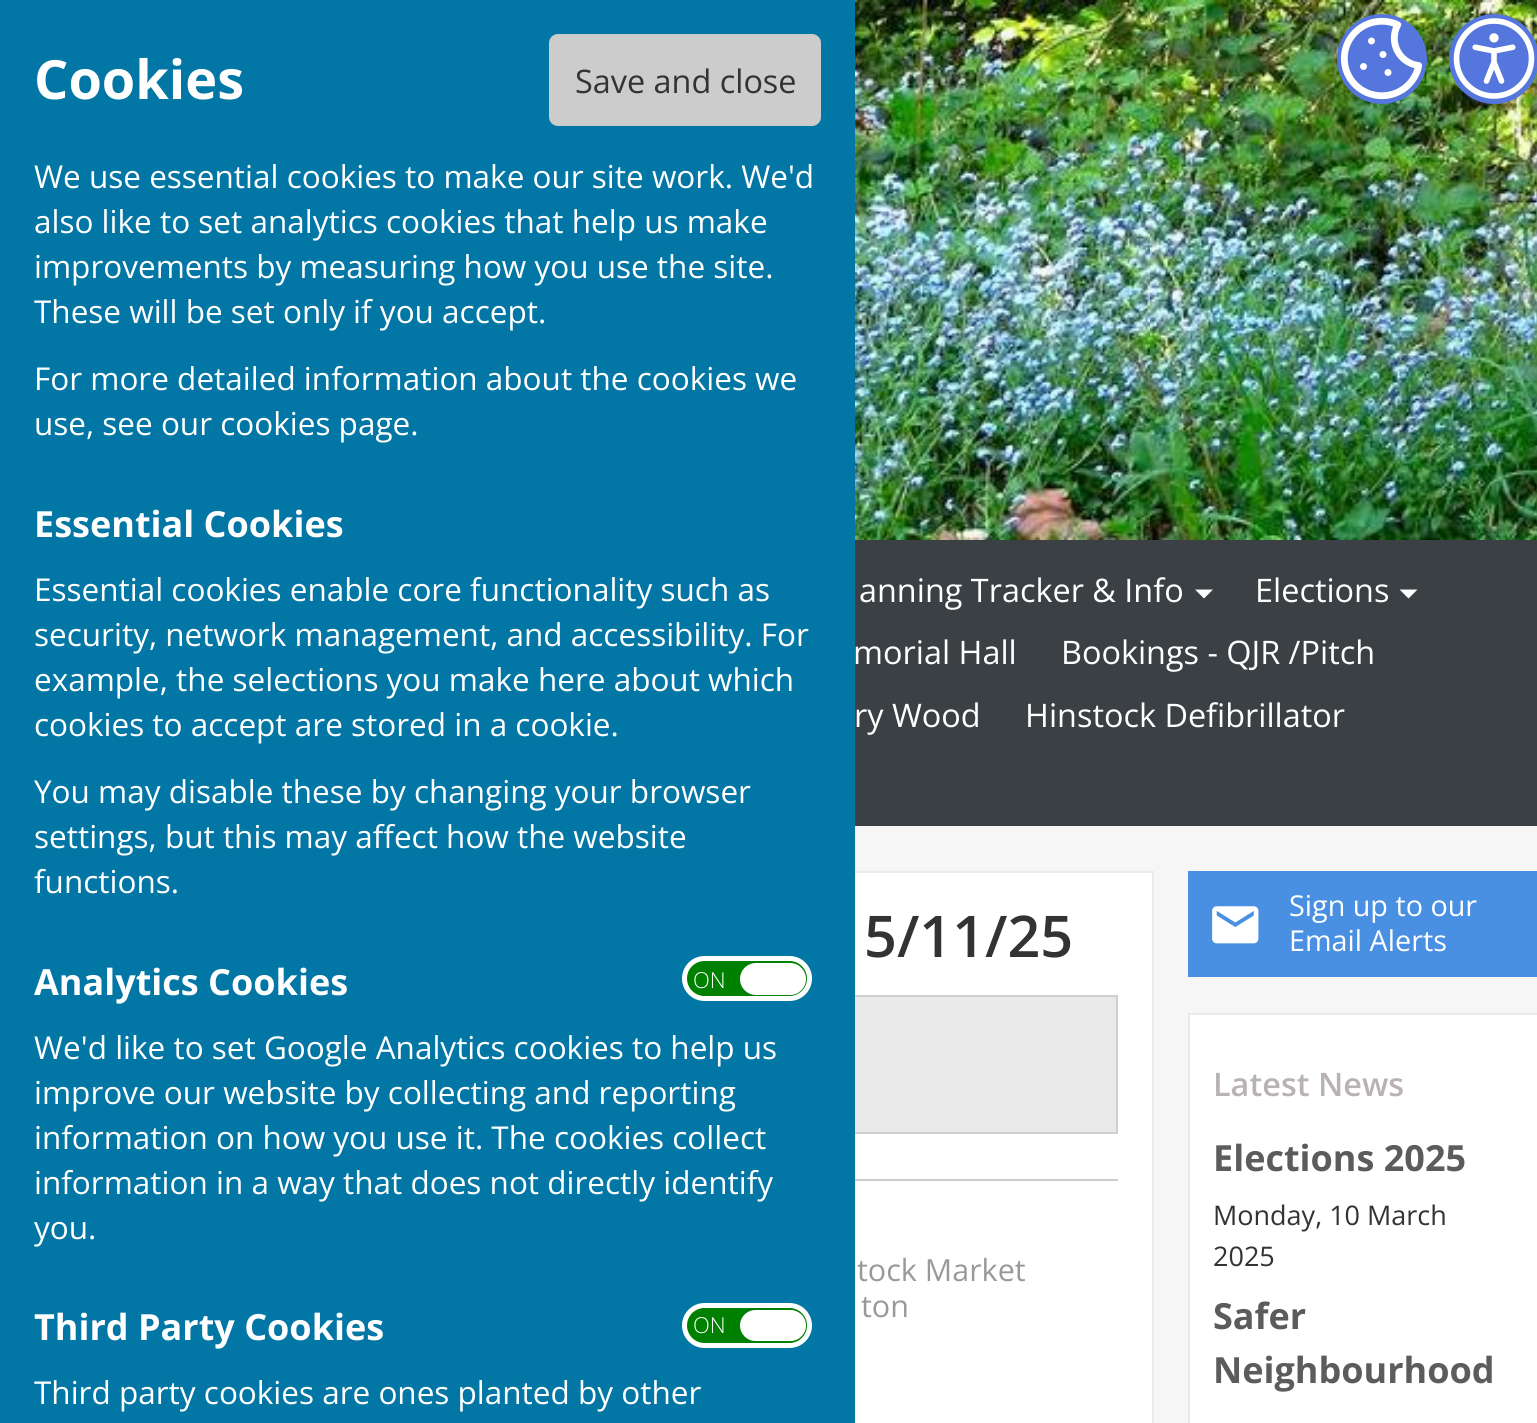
#include <cairo/cairo.h>
#include <math.h>
#include <stddef.h>

static cairo_t *cr;

static void use_color(int r, int g, int b) {
  cairo_set_source_rgb(cr, r / 255.0, g / 255.0, b / 255.0);
}

static void text(double x, double y, const char *s, const char *family, double size, int italic, int bold, int r, int g, int b) {
  cairo_select_font_face(cr, family, italic ? CAIRO_FONT_SLANT_ITALIC : CAIRO_FONT_SLANT_NORMAL,
    bold ? CAIRO_FONT_WEIGHT_BOLD : CAIRO_FONT_WEIGHT_NORMAL);
  cairo_set_font_size(cr, size);
  use_color(r, g, b);
  cairo_move_to(cr, x, y);
  cairo_show_text(cr, s);
}

static void box(double x, double y, double w, double h, int r, int g, int b) {
  use_color(r, g, b);
  cairo_rectangle(cr, x, y, w, h);
  cairo_fill(cr);
}

static void round_rect(double x, double y, double w, double h, double r) {
  cairo_new_sub_path(cr);
  cairo_arc(cr, x + w - r, y + h - r, r, 0, M_PI / 2);
  cairo_arc(cr, x + r, y + h - r, r, M_PI / 2, M_PI);
  cairo_arc(cr, x + r, y + r, r, M_PI, 1.5 * M_PI);
  cairo_arc(cr, x + w - r, y + r, r, 1.5 * M_PI, 2 * M_PI);
  cairo_close_path(cr);
}

static void picture(const char *path, double x, double y, double w, double h) {
  cairo_surface_t *image = cairo_image_surface_create_from_png(path);
  cairo_save(cr);
  cairo_set_source_surface(cr, image, x, y);
  cairo_rectangle(cr, x, y, w, h);
  cairo_fill(cr);
  cairo_restore(cr);
  cairo_surface_destroy(image);
}

static void draw(void) {
  use_color(246, 246, 246);
  cairo_paint(cr);
  box(855, 873, 297, 550, 255, 255, 255);
  cairo_rectangle(cr, 1, 872, 1152, 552);
  use_color(234, 234, 234);
  cairo_stroke(cr);
  box(855, 997, 261, 135, 233, 233, 233);
  cairo_rectangle(cr, 37, 996, 1080, 137);
  use_color(208, 208, 208);
  cairo_stroke(cr);
  box(0, 0, 855, 1423, 2, 118, 165);
  use_color(204, 204, 204);
  round_rect(549, 34, 272, 92, 9);
  cairo_fill(cr);
  use_color(0, 128, 0);
  round_rect(684.5, 958.5, 125, 40, 20);
  cairo_fill_preserve(cr);
  use_color(255, 255, 255);
  cairo_set_line_width(cr, 5);
  cairo_stroke(cr);
  round_rect(740, 963, 66, 32, 16);
  cairo_fill(cr);
  use_color(0, 128, 0);
  round_rect(684.5, 1305.5, 125, 40, 20);
  cairo_fill_preserve(cr);
  use_color(255, 255, 255);
  cairo_stroke(cr);
  round_rect(740, 1310, 66, 31, 15.5);
  cairo_fill(cr);
  picture("img_01.png", 855, 0, 682, 540);
  use_color(85, 119, 221);
  cairo_arc(cr, 1382, 59, 45, 0, 2 * M_PI);
  cairo_fill(cr);
  picture("img_02.png", 1340, 17, 83, 83);
  cairo_arc(cr, 1494, 59, 45, 0, 2 * M_PI);
  cairo_fill(cr);
  picture("img_03.png", 1453, 18, 82, 81);
  box(855, 540, 682, 286, 59, 64, 68);
  use_color(255, 255, 255);
  cairo_new_path(cr);
  cairo_move_to(cr, 1195, 589.5);
  cairo_line_to(cr, 1213, 589.5);
  cairo_line_to(cr, 1204, 598.5);
  cairo_close_path(cr);
  cairo_fill(cr);
  cairo_new_path(cr);
  cairo_move_to(cr, 1399.5, 589.5);
  cairo_line_to(cr, 1417.5, 589.5);
  cairo_line_to(cr, 1408.5, 598.5);
  cairo_close_path(cr);
  cairo_fill(cr);
  box(855, 1179, 263, 2, 204, 204, 204);
  box(1188, 871, 349, 106, 74, 144, 226);
  picture("img_04.png", 1212, 906, 47, 38);
  use_color(255, 255, 255);
  cairo_rectangle(cr, 1189, 1014, 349, 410);
  cairo_fill_preserve(cr);
  use_color(234, 234, 234);
  cairo_set_line_width(cr, 2);
  cairo_stroke(cr);
  text(34, 99, "Cookies", "Open Sans", 54, 0, 1, 255, 255, 255);
  text(575, 93, "Save and close", "Open Sans", 32.4, 0, 0, 51, 51, 51);
  text(34, 188, "We use essential cookies to make our site work. We'd", "Open Sans", 31.5, 0, 0, 255, 255, 255);
  text(34, 233, "also like to set analytics cookies that help us make", "Open Sans", 31.5, 0, 0, 255, 255, 255);
  text(34, 278, "improvements by measuring how you use the site.", "Open Sans", 31.5, 0, 0, 255, 255, 255);
  text(34, 323, "These will be set only if you accept.", "Open Sans", 31.5, 0, 0, 255, 255, 255);
  text(34, 390, "For more detailed information about the cookies we", "Open Sans", 31.5, 0, 0, 255, 255, 255);
  text(34, 435, "use, see our cookies page.", "Open Sans", 31.5, 0, 0, 255, 255, 255);
  text(34, 537, "Essential Cookies", "Open Sans", 36, 0, 1, 255, 255, 255);
  text(34, 601, "Essential cookies enable core functionality such as", "Open Sans", 31.5, 0, 0, 255, 255, 255);
  text(34, 646, "security, network management, and accessibility. For", "Open Sans", 31.5, 0, 0, 255, 255, 255);
  text(34, 691, "example, the selections you make here about which", "Open Sans", 31.5, 0, 0, 255, 255, 255);
  text(34, 736, "cookies to accept are stored in a cookie.", "Open Sans", 31.5, 0, 0, 255, 255, 255);
  text(34, 803, "You may disable these by changing your browser", "Open Sans", 31.5, 0, 0, 255, 255, 255);
  text(34, 848, "settings, but this may affect how the website", "Open Sans", 31.5, 0, 0, 255, 255, 255);
  text(34, 893, "functions.", "Open Sans", 31.5, 0, 0, 255, 255, 255);
  text(34, 995, "Analytics Cookies", "Open Sans", 36, 0, 1, 255, 255, 255);
  text(693, 988, "ON", "Open Sans Light", 22, 0, 0, 255, 255, 255);
  text(34, 1059, "We'd like to set Google Analytics cookies to help us", "Open Sans", 31.5, 0, 0, 255, 255, 255);
  text(34, 1104, "improve our website by collecting and reporting", "Open Sans", 31.5, 0, 0, 255, 255, 255);
  text(34, 1149, "information on how you use it. The cookies collect", "Open Sans", 31.5, 0, 0, 255, 255, 255);
  text(34, 1194, "information in a way that does not directly identify", "Open Sans", 31.5, 0, 0, 255, 255, 255);
  text(34, 1239, "you.", "Open Sans", 31.5, 0, 0, 255, 255, 255);
  text(34, 1340, "Third Party Cookies", "Open Sans", 36, 0, 1, 255, 255, 255);
  text(693, 1333, "ON", "Open Sans Light", 22, 0, 0, 255, 255, 255);
  text(34, 1404, "Third party cookies are ones planted by other", "Open Sans", 31.5, 0, 0, 255, 255, 255);
  text(859, 602, "anning Tracker & Info", "Open Sans", 32.4, 0, 0, 255, 255, 255);
  text(1255, 602, "Elections", "Open Sans", 32.4, 0, 0, 255, 255, 255);
  text(853, 664, "morial Hall", "Open Sans", 32.4, 0, 0, 255, 255, 255);
  text(1061, 664, "Bookings - QJR /Pitch", "Open Sans", 32.4, 0, 0, 255, 255, 255);
  text(854, 727, "ry Wood", "Open Sans", 32.4, 0, 0, 255, 255, 255);
  text(1025, 727, "Hinstock Defibrillator", "Open Sans", 32.4, 0, 0, 255, 255, 255);
  text(864, 957, "5/11/25", "Open Sans SemiBold", 57.5, 0, 0, 51, 51, 51);
  text(857, 1281, "tock Market", "Open Sans", 30.5, 0, 0, 153, 153, 153);
  text(861, 1317, "ton", "Open Sans", 30.5, 0, 0, 153, 153, 153);
  text(1289, 916, "Sign up to our", "Open Sans", 28.75, 0, 0, 255, 255, 255);
  text(1289, 951, "Email Alerts", "Open Sans", 28.75, 0, 0, 255, 255, 255);
  text(1213, 1096, "Latest News", "Open Sans SemiBold", 32.4, 0, 0, 185, 178, 178);
  text(1213, 1171, "Elections 2025", "Open Sans", 36, 0, 1, 92, 92, 92);
  text(1213, 1225, "Monday, 10 March", "Open Sans", 27, 0, 0, 51, 51, 51);
  text(1213, 1266, "2025", "Open Sans", 27, 0, 0, 51, 51, 51);
  text(1213, 1329, "Safer", "Open Sans", 36, 0, 1, 92, 92, 92);
  text(1213, 1383, "Neighbourhood", "Open Sans", 36, 0, 1, 92, 92, 92);
}

int main(void) {
  cairo_surface_t *surface = cairo_image_surface_create(CAIRO_FORMAT_RGB24, 1537, 1423);
  cr = cairo_create(surface);
  cairo_font_options_t *options = cairo_font_options_create();
  cairo_font_options_set_hint_metrics(options, CAIRO_HINT_METRICS_OFF);
  cairo_font_options_set_hint_style(options, CAIRO_HINT_STYLE_NONE);
  cairo_set_font_options(cr, options);
  cairo_set_miter_limit(cr, 4);
  draw();
  cairo_surface_write_to_png(surface, "out.png");
  cairo_font_options_destroy(options);
  cairo_destroy(cr);
  cairo_surface_destroy(surface);
  return 0;
}
